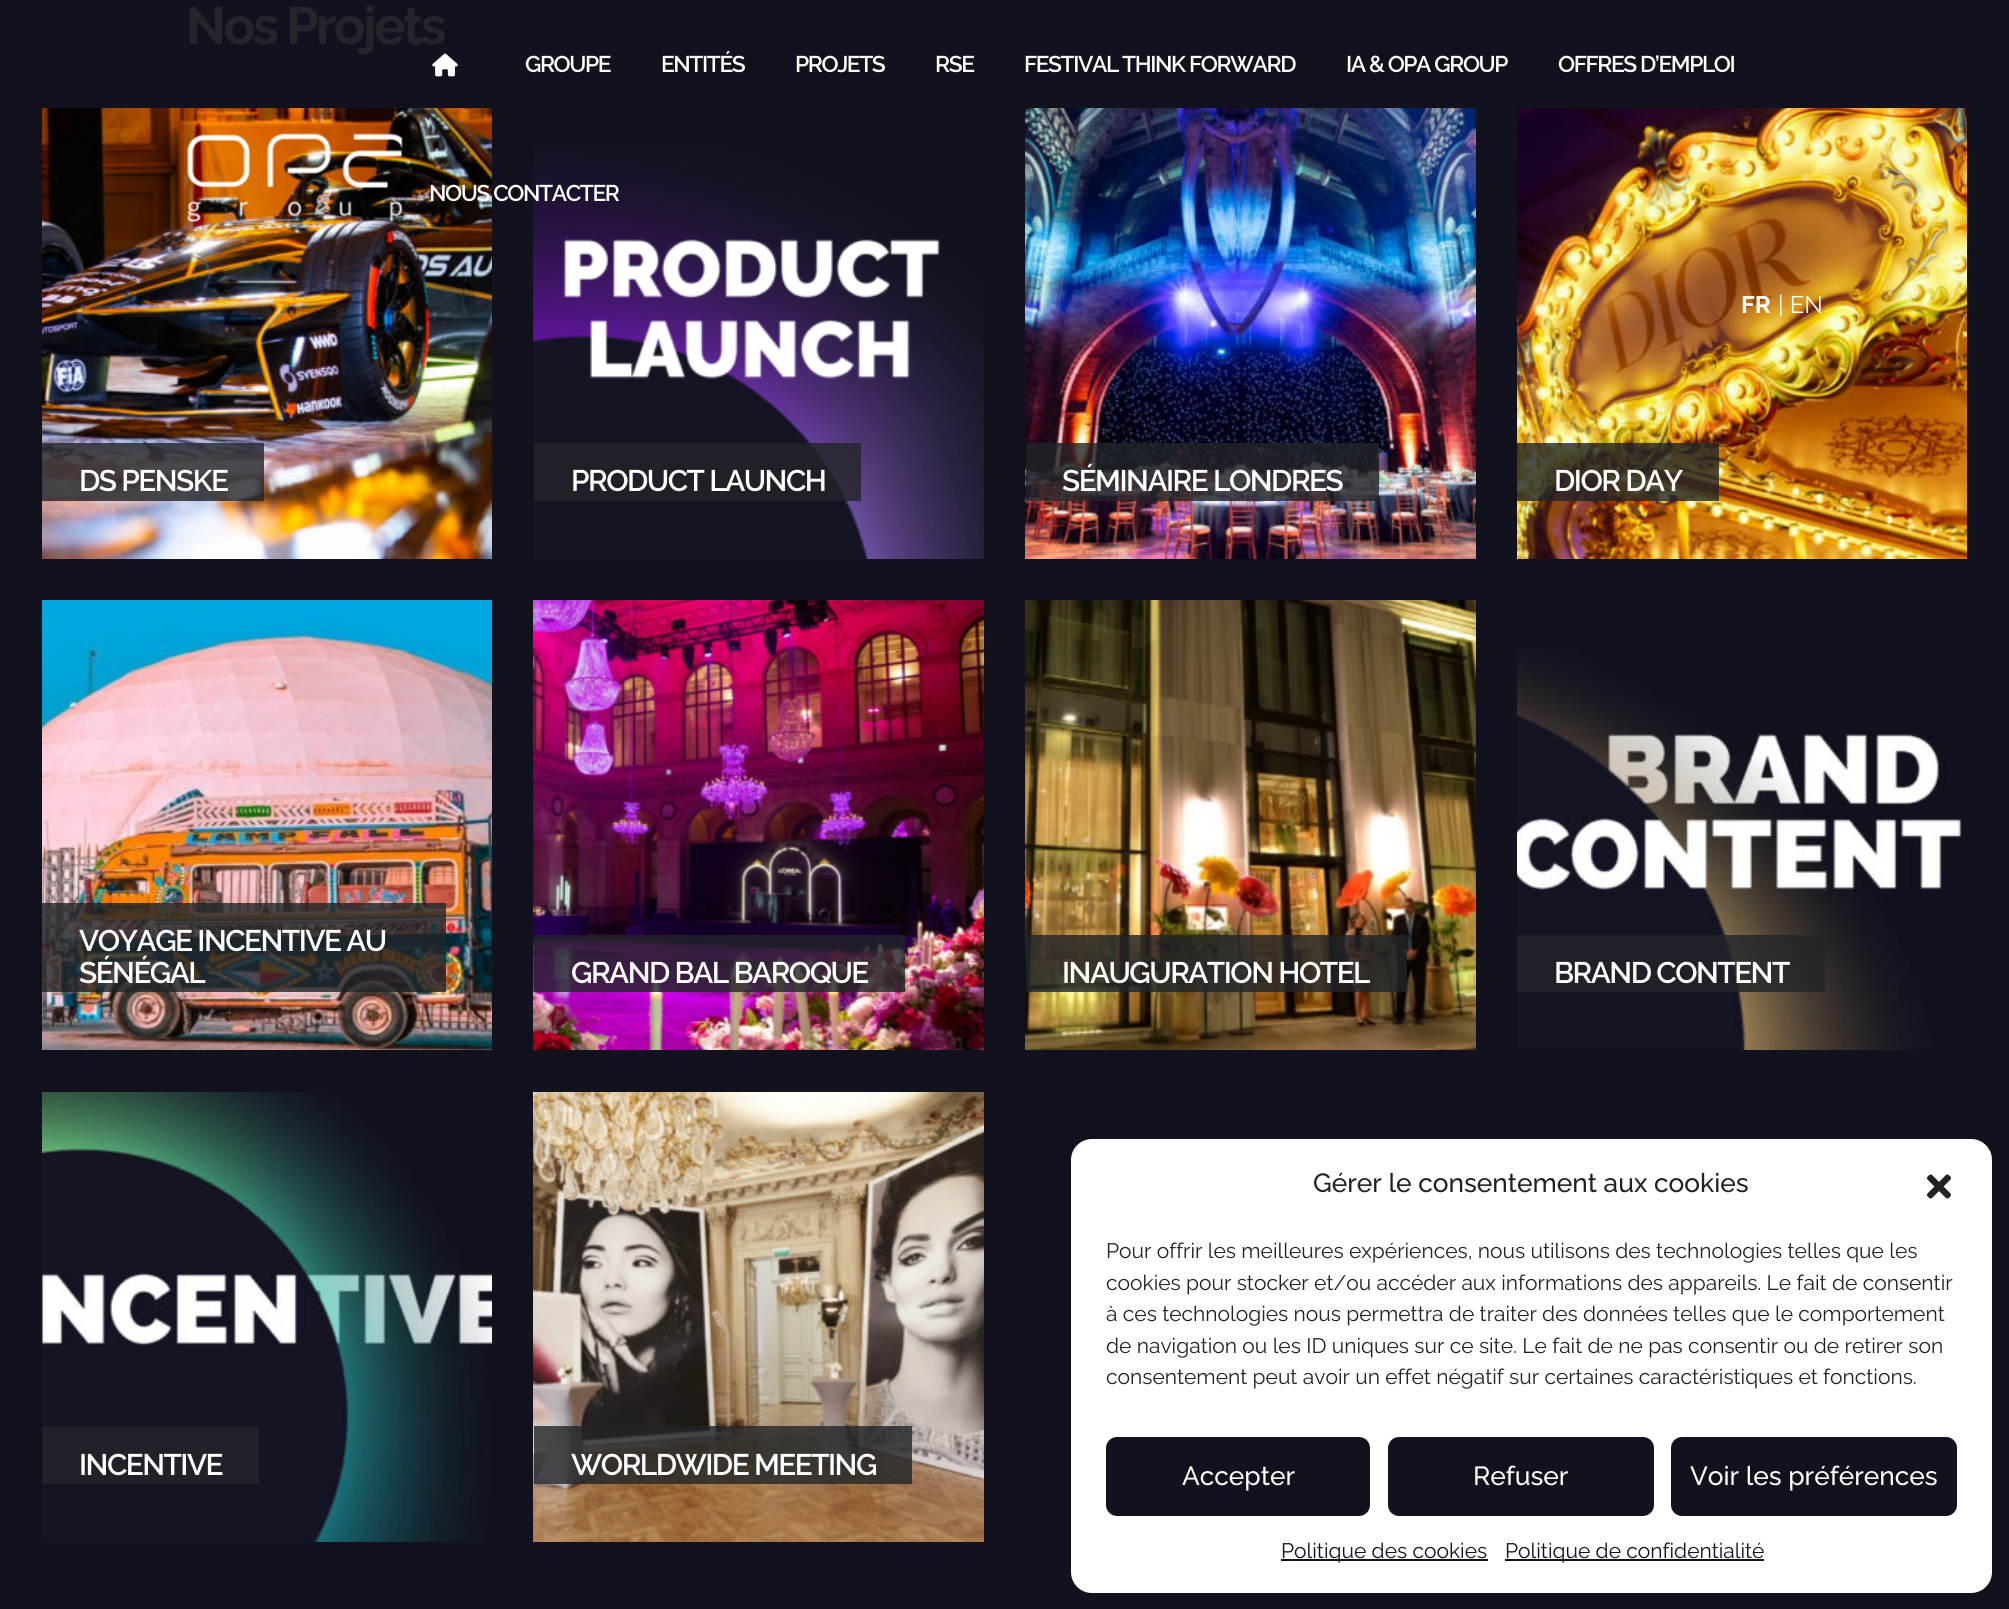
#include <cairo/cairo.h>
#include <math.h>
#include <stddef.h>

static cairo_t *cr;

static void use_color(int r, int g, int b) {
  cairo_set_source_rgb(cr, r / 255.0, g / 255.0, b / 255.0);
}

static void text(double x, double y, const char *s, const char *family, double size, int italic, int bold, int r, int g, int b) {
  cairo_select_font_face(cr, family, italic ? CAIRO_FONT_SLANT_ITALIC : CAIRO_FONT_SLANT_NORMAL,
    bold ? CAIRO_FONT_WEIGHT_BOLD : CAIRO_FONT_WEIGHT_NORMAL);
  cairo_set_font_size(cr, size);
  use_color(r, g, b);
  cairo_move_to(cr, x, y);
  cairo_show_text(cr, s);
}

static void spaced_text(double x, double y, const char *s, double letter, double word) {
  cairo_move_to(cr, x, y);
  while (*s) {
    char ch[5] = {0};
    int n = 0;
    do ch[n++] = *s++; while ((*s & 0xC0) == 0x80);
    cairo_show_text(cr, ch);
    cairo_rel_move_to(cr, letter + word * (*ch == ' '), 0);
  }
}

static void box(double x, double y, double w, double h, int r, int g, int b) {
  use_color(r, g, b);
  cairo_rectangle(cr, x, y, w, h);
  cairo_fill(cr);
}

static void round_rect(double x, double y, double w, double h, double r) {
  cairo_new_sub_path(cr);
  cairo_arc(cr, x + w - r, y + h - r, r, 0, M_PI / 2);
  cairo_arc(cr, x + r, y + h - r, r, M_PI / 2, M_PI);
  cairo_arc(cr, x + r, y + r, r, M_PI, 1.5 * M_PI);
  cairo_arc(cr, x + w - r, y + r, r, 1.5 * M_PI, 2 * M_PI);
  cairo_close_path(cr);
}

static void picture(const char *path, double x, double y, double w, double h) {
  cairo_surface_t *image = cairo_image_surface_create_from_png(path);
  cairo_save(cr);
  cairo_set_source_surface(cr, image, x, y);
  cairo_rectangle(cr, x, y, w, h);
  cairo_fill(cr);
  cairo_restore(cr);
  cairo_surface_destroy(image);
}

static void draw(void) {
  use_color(18, 18, 30);
  cairo_paint(cr);
  picture("img_01.png", 42, 108, 450, 451);
  cairo_set_source_rgba(cr, 0.129, 0.145, 0.161, 0.8);
  cairo_rectangle(cr, 42, 443, 222, 58);
  cairo_fill(cr);
  picture("img_02.png", 533, 141, 451, 418);
  cairo_rectangle(cr, 534, 443, 327, 58);
  cairo_fill(cr);
  picture("img_03.png", 1025, 108, 451, 451);
  cairo_rectangle(cr, 1026, 443, 353, 58);
  cairo_fill(cr);
  picture("img_04.png", 1517, 108, 450, 451);
  cairo_rectangle(cr, 1517, 443, 202, 58);
  cairo_fill(cr);
  picture("img_05.png", 42, 600, 450, 450);
  cairo_rectangle(cr, 42, 903, 404, 89);
  cairo_fill(cr);
  picture("img_06.png", 533, 600, 451, 450);
  cairo_rectangle(cr, 534, 935, 371, 57);
  cairo_fill(cr);
  picture("img_07.png", 1025, 600, 451, 450);
  cairo_rectangle(cr, 1026, 935, 381, 57);
  cairo_fill(cr);
  picture("img_08.png", 1517, 648, 450, 402);
  cairo_rectangle(cr, 1517, 935, 308, 57);
  cairo_fill(cr);
  picture("img_09.png", 42, 1092, 450, 450);
  box(42, 1426, 217, 58, 31, 34, 40);
  picture("img_10.png", 533, 1092, 451, 450);
  cairo_set_source_rgba(cr, 0.129, 0.145, 0.161, 0.8);
  cairo_rectangle(cr, 534, 1426, 378, 58);
  cairo_fill(cr);
  picture("img_11.png", 186, 133, 217, 89);
  use_color(255, 255, 255);
  round_rect(1071, 1139, 921, 454, 21);
  cairo_fill(cr);
  picture("img_13.png", 1927, 1174, 24, 25);
  use_color(18, 18, 30);
  round_rect(1107, 1438, 262, 77, 10);
  cairo_fill_preserve(cr);
  cairo_stroke(cr);
  round_rect(1389, 1438, 264, 77, 10);
  cairo_fill_preserve(cr);
  cairo_stroke(cr);
  round_rect(1672, 1438, 284, 77, 10);
  cairo_fill_preserve(cr);
  cairo_stroke(cr);
  box(1281, 1559, 207, 2, 18, 18, 30);
  box(1505, 1559, 259, 2, 18, 18, 30);
  cairo_select_font_face(cr, "Raleway", CAIRO_FONT_SLANT_NORMAL, CAIRO_FONT_WEIGHT_BOLD);
  cairo_set_font_size(cr, 52.5);
  use_color(34, 37, 41);
  spaced_text(186, 44, "Nos Projets", -2.6, 0);
  cairo_select_font_face(cr, "Raleway SemiBold", CAIRO_FONT_SLANT_NORMAL, CAIRO_FONT_WEIGHT_NORMAL);
  cairo_set_font_size(cr, 29.75);
  use_color(255, 255, 255);
  spaced_text(79, 491, "DS PENSKE", -1.5, 0);
  spaced_text(571, 491, "PRODUCT LAUNCH", -1.5, 0);
  spaced_text(1062, 491, "SÉMINAIRE LONDRES", -1.5, 0);
  spaced_text(1554, 491, "DIOR DAY", -1.5, 0);
  spaced_text(79, 951, "VOYAGE INCENTIVE AU", -1.5, 0);
  spaced_text(79, 983, "SÉNÉGAL", -1.5, 0);
  spaced_text(571, 983, "GRAND BAL BAROQUE", -1.5, 0);
  spaced_text(1062, 983, "INAUGURATION HOTEL", -1.5, 0);
  spaced_text(1554, 983, "BRAND CONTENT", -1.5, 0);
  spaced_text(79, 1475, "INCENTIVE", -1.5, 0);
  spaced_text(571, 1475, "WORLDWIDE MEETING", -1.5, 0);
  picture("img_12.png", 432, 53, 26, 24);
  cairo_set_font_size(cr, 22.75);
  spaced_text(525, 72, "GROUPE", -1.4, 0);
  spaced_text(661, 72, "ENTITÉS", -1.4, 0);
  spaced_text(795, 72, "PROJETS", -1.4, 0);
  spaced_text(935, 72, "RSE", -1.4, 0);
  spaced_text(1024, 72, "FESTIVAL THINK FORWARD", -1.4, 0);
  spaced_text(1346, 72, "IA & OPA GROUP", -1.4, 0);
  spaced_text(1558, 72, "OFFRES D’EMPLOI", -1.4, 0);
  spaced_text(429, 201, "NOUS CONTACTER", -1.4, 0);
  text(1741, 313, "FR", "Raleway", 24, 0, 1, 255, 255, 255);
  text(1778, 313, "| EN", "Raleway", 24, 0, 0, 255, 255, 255);
  text(1313, 1192, "Gérer le consentement aux cookies", "Raleway Medium", 26.25, 0, 0, 34, 34, 34);
  text(1106, 1258, "Pour offrir les meilleures expériences, nous utilisons des technologies telles que les", "Raleway", 21, 0, 0, 34, 34, 34);
  text(1106, 1290, "cookies pour stocker et/ou accéder aux informations des appareils. Le fait de consentir", "Raleway", 21, 0, 0, 34, 34, 34);
  text(1106, 1321, "à ces technologies nous permettra de traiter des données telles que le comportement", "Raleway", 21, 0, 0, 34, 34, 34);
  text(1106, 1353, "de navigation ou les ID uniques sur ce site. Le fait de ne pas consentir ou de retirer son", "Raleway", 21, 0, 0, 34, 34, 34);
  text(1106, 1384, "consentement peut avoir un effet négatif sur certaines caractéristiques et fonctions.", "Raleway", 21, 0, 0, 34, 34, 34);
  text(1182, 1485, "Accepter", "Raleway Medium", 26.25, 0, 0, 255, 255, 255);
  text(1473, 1485, "Refuser", "Raleway Medium", 26.25, 0, 0, 255, 255, 255);
  text(1690, 1485, "Voir les préférences", "Raleway Medium", 26.25, 0, 0, 255, 255, 255);
  text(1281, 1558, "Politique des cookies", "Raleway", 21, 0, 0, 18, 18, 30);
  text(1505, 1558, "Politique de confidentialité", "Raleway", 21, 0, 0, 18, 18, 30);
}

int main(void) {
  cairo_surface_t *surface = cairo_image_surface_create(CAIRO_FORMAT_RGB24, 2009, 1609);
  cr = cairo_create(surface);
  cairo_font_options_t *options = cairo_font_options_create();
  cairo_font_options_set_hint_metrics(options, CAIRO_HINT_METRICS_OFF);
  cairo_font_options_set_hint_style(options, CAIRO_HINT_STYLE_NONE);
  cairo_set_font_options(cr, options);
  cairo_set_miter_limit(cr, 4);
  draw();
  cairo_surface_write_to_png(surface, "out.png");
  cairo_font_options_destroy(options);
  cairo_destroy(cr);
  cairo_surface_destroy(surface);
  return 0;
}
